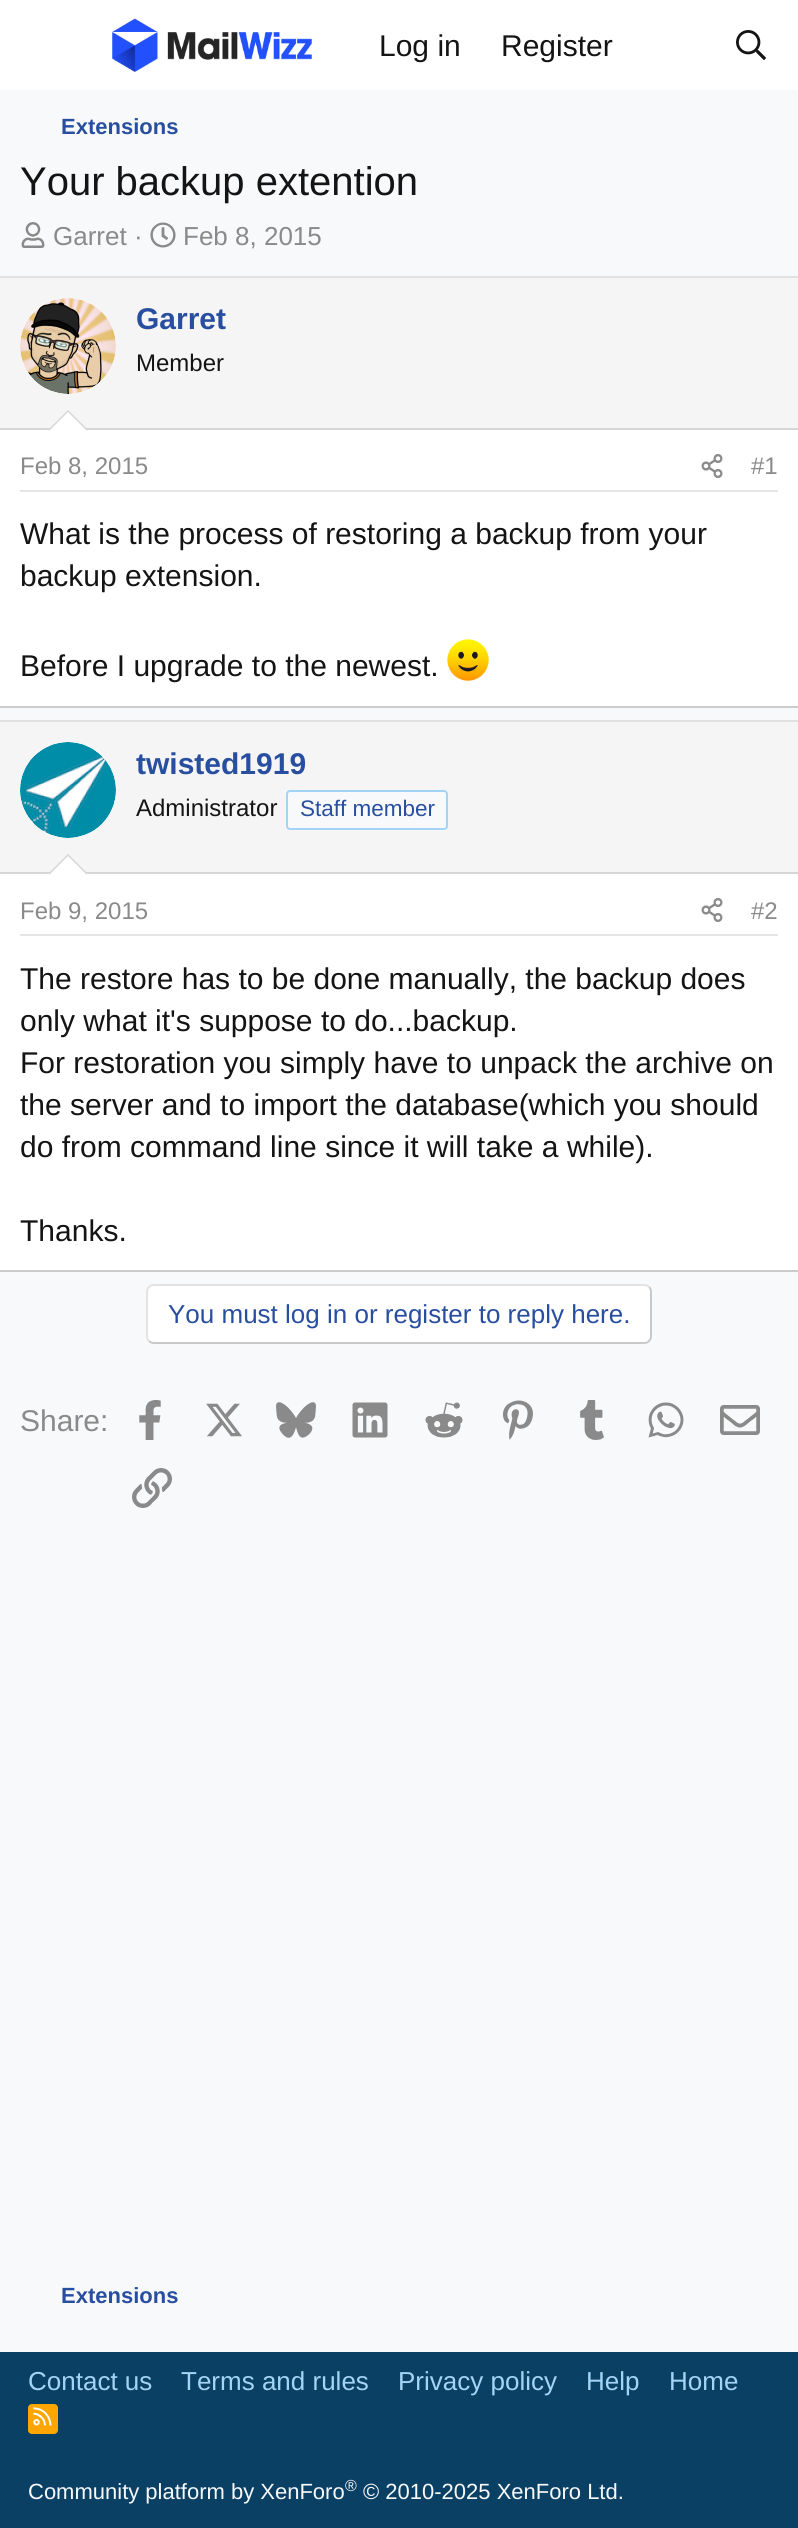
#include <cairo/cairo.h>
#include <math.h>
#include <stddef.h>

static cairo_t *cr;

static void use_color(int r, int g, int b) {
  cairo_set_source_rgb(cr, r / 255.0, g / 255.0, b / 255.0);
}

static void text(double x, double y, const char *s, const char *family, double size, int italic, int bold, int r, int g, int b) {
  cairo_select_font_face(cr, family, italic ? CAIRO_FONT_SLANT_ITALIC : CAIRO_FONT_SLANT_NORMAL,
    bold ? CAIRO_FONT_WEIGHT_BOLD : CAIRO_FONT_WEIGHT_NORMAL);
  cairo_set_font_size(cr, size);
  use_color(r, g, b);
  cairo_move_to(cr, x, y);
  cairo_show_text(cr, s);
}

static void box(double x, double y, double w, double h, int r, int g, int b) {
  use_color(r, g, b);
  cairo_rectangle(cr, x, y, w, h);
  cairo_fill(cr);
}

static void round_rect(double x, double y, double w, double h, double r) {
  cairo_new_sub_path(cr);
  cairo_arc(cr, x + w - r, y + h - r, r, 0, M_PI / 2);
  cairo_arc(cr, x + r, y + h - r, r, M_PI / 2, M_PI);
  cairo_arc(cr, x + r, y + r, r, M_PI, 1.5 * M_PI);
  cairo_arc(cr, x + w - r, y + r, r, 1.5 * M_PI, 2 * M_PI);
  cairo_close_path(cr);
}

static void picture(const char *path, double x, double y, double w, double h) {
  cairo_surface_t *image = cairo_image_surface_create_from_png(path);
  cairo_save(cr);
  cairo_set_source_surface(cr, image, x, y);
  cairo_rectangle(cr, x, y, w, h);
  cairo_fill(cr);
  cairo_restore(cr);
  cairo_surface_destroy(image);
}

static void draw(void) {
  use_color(248, 249, 250);
  cairo_paint(cr);
  box(0, 0, 798, 90, 255, 255, 255);
  picture("img_01.png", 112, 18, 200, 54);
  picture("img_02.png", 736, 30, 30, 30);
  picture("img_03.png", 21, 222, 24, 26);
  picture("img_04.png", 150, 222, 26, 26);
  box(0, 430, 798, 276, 255, 255, 255);
  box(0, 276, 798, 2, 224, 224, 224);
  box(0, 706, 798, 2, 204, 204, 204);
  box(0, 278, 798, 150, 245, 245, 245);
  box(0, 428, 798, 2, 214, 214, 214);
  use_color(255, 255, 255);
  cairo_arc(cr, 68, 346, 48, 0, 2 * M_PI);
  cairo_fill(cr);
  picture("img_05.png", 20, 298, 96, 96);
  use_color(214, 214, 214);
  cairo_new_path(cr);
  cairo_move_to(cr, 88, 430);
  cairo_line_to(cr, 48, 430);
  cairo_line_to(cr, 68, 410);
  cairo_close_path(cr);
  cairo_fill(cr);
  use_color(255, 255, 255);
  cairo_new_path(cr);
  cairo_move_to(cr, 86, 430);
  cairo_line_to(cr, 50, 430);
  cairo_line_to(cr, 68, 412);
  cairo_close_path(cr);
  cairo_fill(cr);
  box(20, 490, 758, 2, 229, 229, 229);
  picture("img_06.png", 701, 454, 22, 24);
  picture("img_07.png", 447, 639, 42, 42);
  box(0, 874, 798, 396, 255, 255, 255);
  box(0, 720, 798, 2, 224, 224, 224);
  box(0, 1270, 798, 2, 204, 204, 204);
  box(0, 722, 798, 150, 245, 245, 245);
  box(0, 872, 798, 2, 214, 214, 214);
  use_color(255, 255, 255);
  cairo_arc(cr, 68, 790, 48, 0, 2 * M_PI);
  cairo_fill(cr);
  picture("img_08.png", 20, 742, 96, 96);
  use_color(248, 249, 250);
  round_rect(287, 791, 160, 38, 3);
  cairo_fill_preserve(cr);
  use_color(163, 212, 245);
  cairo_stroke(cr);
  use_color(214, 214, 214);
  cairo_new_path(cr);
  cairo_move_to(cr, 88, 874);
  cairo_line_to(cr, 48, 874);
  cairo_line_to(cr, 68, 854);
  cairo_close_path(cr);
  cairo_fill(cr);
  use_color(255, 255, 255);
  cairo_new_path(cr);
  cairo_move_to(cr, 86, 874);
  cairo_line_to(cr, 50, 874);
  cairo_line_to(cr, 68, 856);
  cairo_close_path(cr);
  cairo_fill(cr);
  box(20, 934, 758, 2, 229, 229, 229);
  picture("img_06.png", 701, 898, 22, 24);
  use_color(255, 255, 255);
  round_rect(146, 1284, 506, 60, 8);
  cairo_fill(cr);
  cairo_new_path(cr);
  cairo_move_to(cr, 649, 1287);
  cairo_curve_to(cr, 650.5, 1288.5, 651, 1290, 651, 1292);
  cairo_line_to(cr, 651, 1336);
  cairo_curve_to(cr, 651, 1338, 650.5, 1339.5, 649, 1341);
  cairo_curve_to(cr, 647.5, 1342.5, 646, 1343, 644, 1343);
  cairo_line_to(cr, 154, 1343);
  cairo_curve_to(cr, 152, 1343, 150.5, 1342.5, 149, 1341);
  use_color(201, 201, 201);
  cairo_stroke(cr);
  cairo_new_path(cr);
  cairo_move_to(cr, 149, 1341);
  cairo_curve_to(cr, 147.5, 1339.5, 147, 1338, 147, 1336);
  cairo_line_to(cr, 147, 1292);
  cairo_curve_to(cr, 147, 1290, 147.5, 1288.5, 149, 1287);
  cairo_curve_to(cr, 150.5, 1285.5, 152, 1285, 154, 1285);
  cairo_line_to(cr, 644, 1285);
  cairo_curve_to(cr, 646, 1285, 647.5, 1285.5, 649, 1287);
  use_color(227, 227, 227);
  cairo_stroke(cr);
  picture("img_09.png", 139, 1400, 22, 40);
  picture("img_10.png", 206, 1403, 36, 34);
  picture("img_11.png", 276, 1402, 40, 36);
  picture("img_12.png", 352, 1402, 36, 36);
  picture("img_13.png", 425, 1402, 38, 36);
  picture("img_14.png", 503, 1400, 30, 40);
  picture("img_15.png", 580, 1400, 24, 40);
  picture("img_16.png", 648, 1402, 36, 36);
  picture("img_17.png", 720, 1405, 40, 30);
  picture("img_18.png", 132, 1468, 40, 40);
  box(0, 2352, 798, 176, 11, 64, 101);
  use_color(255, 165, 0);
  round_rect(28, 2404, 30, 30, 4);
  cairo_fill(cr);
  picture("img_19.png", 33, 2407, 19, 19);
  text(379, 56, "Log in", "Liberation Sans", 30, 0, 0, 20, 20, 20);
  text(501, 56, "Register", "Liberation Sans", 30, 0, 0, 20, 20, 20);
  text(61, 134, "Extensions", "Liberation Sans", 22, 0, 1, 40, 78, 159);
  text(20, 195, "Your backup extention", "Liberation Sans", 40, 0, 0, 20, 20, 20);
  text(53, 245, "Garret ·", "Liberation Sans", 26, 0, 0, 138, 138, 138);
  text(183, 245, "Feb 8, 2015", "Liberation Sans", 26, 0, 0, 138, 138, 138);
  text(136, 329, "Garret", "Liberation Sans", 30, 0, 1, 40, 78, 159);
  text(136, 371, "Member", "Liberation Sans", 24, 0, 0, 20, 20, 20);
  text(20, 474, "Feb 8, 2015", "Liberation Sans", 24, 0, 0, 138, 138, 138);
  text(751, 474, "#1", "Liberation Sans", 24, 0, 0, 138, 138, 138);
  text(20, 544, "What is the process of restoring a backup from your", "Liberation Sans", 30, 0, 0, 20, 20, 20);
  text(20, 586, "backup extension.", "Liberation Sans", 30, 0, 0, 20, 20, 20);
  text(20, 676, "Before I upgrade to the newest.", "Liberation Sans", 30, 0, 0, 20, 20, 20);
  text(136, 774, "twisted1919", "Liberation Sans", 30, 0, 1, 40, 78, 159);
  text(136, 816, "Administrator", "Liberation Sans", 24, 0, 0, 20, 20, 20);
  text(300, 816, "Staff member", "Liberation Sans", 22.5, 0, 0, 40, 78, 159);
  text(20, 919, "Feb 9, 2015", "Liberation Sans", 24, 0, 0, 138, 138, 138);
  text(751, 919, "#2", "Liberation Sans", 24, 0, 0, 138, 138, 138);
  text(20, 989, "The restore has to be done manually, the backup does", "Liberation Sans", 30, 0, 0, 20, 20, 20);
  text(20, 1031, "only what it's suppose to do...backup.", "Liberation Sans", 30, 0, 0, 20, 20, 20);
  text(20, 1073, "For restoration you simply have to unpack the archive on", "Liberation Sans", 30, 0, 0, 20, 20, 20);
  text(20, 1115, "the server and to import the database(which you should", "Liberation Sans", 30, 0, 0, 20, 20, 20);
  text(20, 1157, "do from command line since it will take a while).", "Liberation Sans", 30, 0, 0, 20, 20, 20);
  text(20, 1241, "Thanks.", "Liberation Sans", 30, 0, 0, 20, 20, 20);
  text(168, 1323, "You must log in or register to reply here.", "Liberation Sans", 26, 0, 0, 40, 78, 159);
  text(20, 1431, "Share:", "Liberation Sans", 30, 0, 0, 138, 138, 138);
  text(61, 2303, "Extensions", "Liberation Sans", 22, 0, 1, 40, 78, 159);
  text(28, 2390, "Contact us", "Liberation Sans", 26, 0, 0, 163, 212, 245);
  text(181, 2390, "Terms and rules", "Liberation Sans", 26, 0, 0, 163, 212, 245);
  text(398, 2390, "Privacy policy", "Liberation Sans", 26, 0, 0, 163, 212, 245);
  text(586, 2390, "Help", "Liberation Sans", 26, 0, 0, 163, 212, 245);
  text(669, 2390, "Home", "Liberation Sans", 26, 0, 0, 163, 212, 245);
  text(28, 2499, "Community platform by XenForo", "Liberation Sans", 22, 0, 0, 248, 249, 250);
  text(345, 2491, "®", "Liberation Sans", 16, 0, 0, 248, 249, 250);
  text(363, 2499, "© 2010-2025 XenForo Ltd.", "Liberation Sans", 22, 0, 0, 248, 249, 250);
}

int main(void) {
  cairo_surface_t *surface = cairo_image_surface_create(CAIRO_FORMAT_RGB24, 798, 2528);
  cr = cairo_create(surface);
  cairo_font_options_t *options = cairo_font_options_create();
  cairo_font_options_set_hint_metrics(options, CAIRO_HINT_METRICS_OFF);
  cairo_font_options_set_hint_style(options, CAIRO_HINT_STYLE_NONE);
  cairo_set_font_options(cr, options);
  cairo_set_miter_limit(cr, 4);
  draw();
  cairo_surface_write_to_png(surface, "out.png");
  cairo_font_options_destroy(options);
  cairo_destroy(cr);
  cairo_surface_destroy(surface);
  return 0;
}
